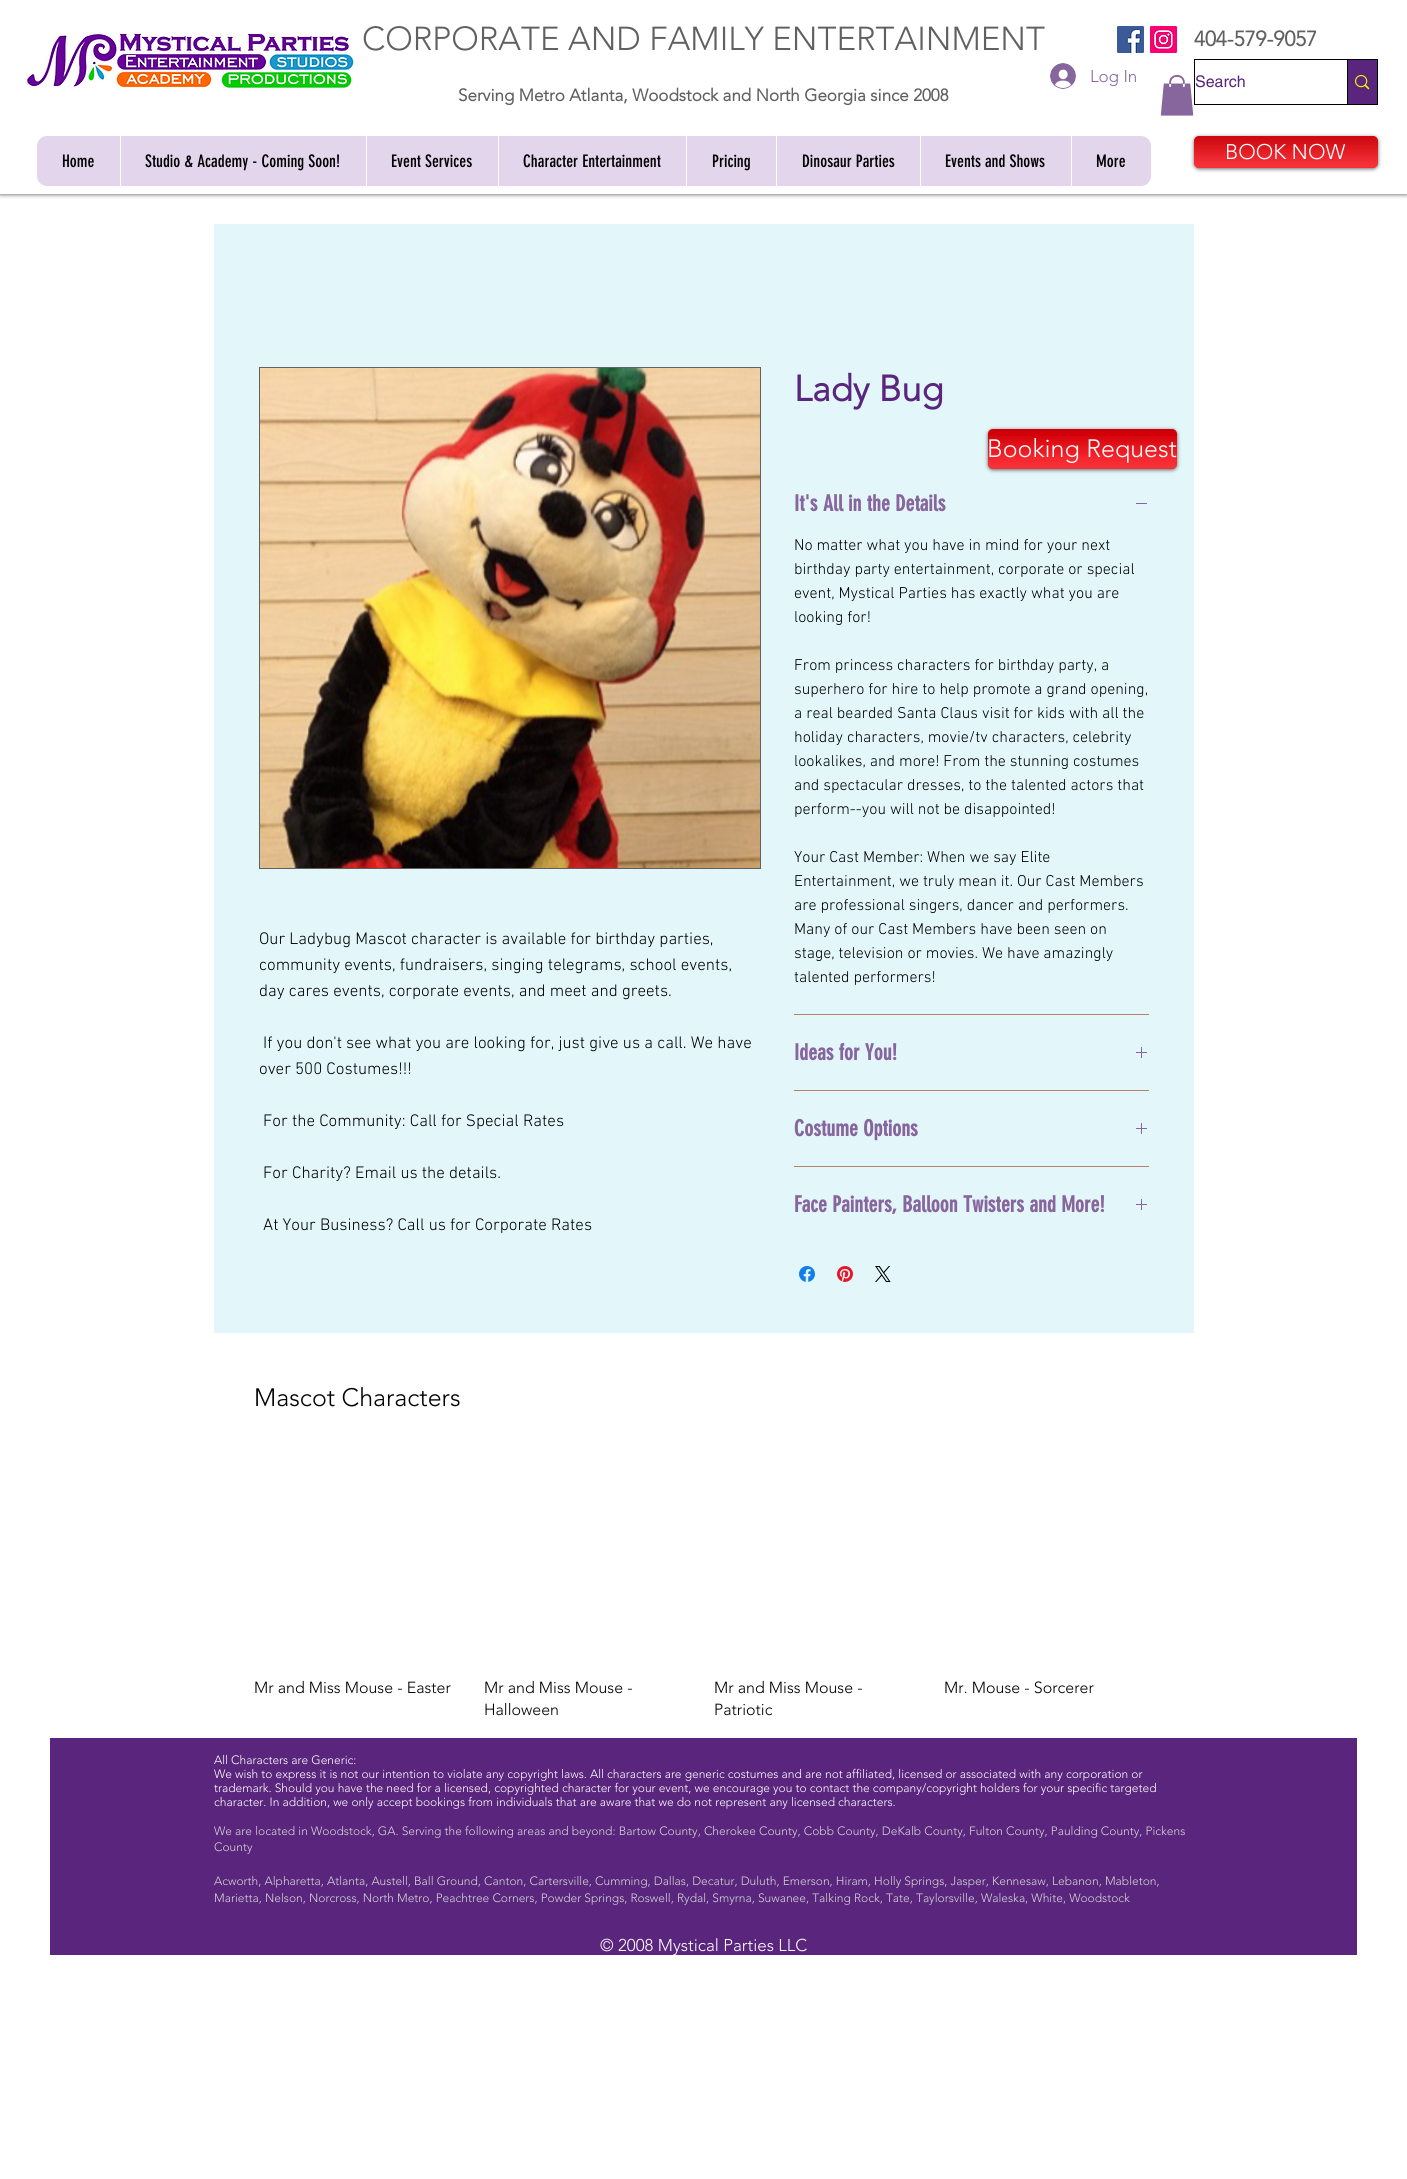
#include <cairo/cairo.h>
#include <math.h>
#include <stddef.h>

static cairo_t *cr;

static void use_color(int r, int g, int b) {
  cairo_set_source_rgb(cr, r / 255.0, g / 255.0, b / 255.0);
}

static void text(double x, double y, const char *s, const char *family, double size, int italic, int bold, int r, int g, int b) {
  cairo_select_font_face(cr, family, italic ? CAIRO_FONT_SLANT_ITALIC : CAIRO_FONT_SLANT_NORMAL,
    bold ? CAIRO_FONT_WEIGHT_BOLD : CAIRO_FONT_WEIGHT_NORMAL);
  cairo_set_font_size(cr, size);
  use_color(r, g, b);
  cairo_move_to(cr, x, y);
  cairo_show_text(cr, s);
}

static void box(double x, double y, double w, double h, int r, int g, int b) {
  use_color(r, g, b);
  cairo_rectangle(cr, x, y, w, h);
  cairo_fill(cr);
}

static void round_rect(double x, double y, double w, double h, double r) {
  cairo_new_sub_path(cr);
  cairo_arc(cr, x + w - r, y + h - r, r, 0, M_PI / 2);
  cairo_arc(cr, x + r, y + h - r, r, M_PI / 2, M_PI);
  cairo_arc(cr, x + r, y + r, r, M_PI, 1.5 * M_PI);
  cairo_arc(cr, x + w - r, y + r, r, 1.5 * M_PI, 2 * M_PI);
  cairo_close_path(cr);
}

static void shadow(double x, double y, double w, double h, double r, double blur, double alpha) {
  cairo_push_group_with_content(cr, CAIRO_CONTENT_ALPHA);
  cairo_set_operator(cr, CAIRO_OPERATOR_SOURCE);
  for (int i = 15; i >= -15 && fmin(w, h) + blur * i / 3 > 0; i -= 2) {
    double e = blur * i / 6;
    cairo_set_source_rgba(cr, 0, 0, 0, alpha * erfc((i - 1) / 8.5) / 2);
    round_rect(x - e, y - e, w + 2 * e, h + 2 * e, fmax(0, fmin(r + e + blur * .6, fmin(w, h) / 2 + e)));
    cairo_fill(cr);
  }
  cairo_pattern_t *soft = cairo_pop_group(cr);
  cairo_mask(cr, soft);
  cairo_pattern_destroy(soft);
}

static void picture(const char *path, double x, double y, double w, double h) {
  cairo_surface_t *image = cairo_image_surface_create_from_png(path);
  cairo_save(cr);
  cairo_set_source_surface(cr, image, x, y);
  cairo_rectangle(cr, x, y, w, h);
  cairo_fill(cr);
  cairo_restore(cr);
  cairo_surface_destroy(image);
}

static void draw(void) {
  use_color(255, 255, 255);
  cairo_paint(cr);
  cairo_save(cr);
  cairo_rectangle(cr, 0, 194, 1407, 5);
  cairo_clip(cr);
  use_color(0, 0, 0);
  shadow(0, 0, 1407, 194, 0, 2.5, 0.7);
  cairo_restore(cr);
  picture("img_01.png", 25, 32, 331, 58);
  picture("img_02.png", 1050, 63, 26, 26);
  picture("img_03.png", 1117, 26, 27, 27);
  picture("img_04.png", 1150, 26, 27, 27);
  picture("img_05.png", 1160, 75, 34, 41);
  cairo_rectangle(cr, 1194.5, 59.5, 183, 45);
  use_color(0, 0, 0);
  cairo_set_line_width(cr, 1);
  cairo_stroke(cr);
  box(1348, 60, 29, 44, 90, 37, 125);
  box(1347, 60, 1, 44, 0, 0, 0);
  picture("img_06.png", 1355, 75, 15, 15);
  use_color(0, 0, 0);
  shadow(1194, 137, 184, 32, 5, 2, 0.6);
  use_color(244, 0, 9);
  round_rect(1194, 136, 184, 32, 5);
  cairo_fill(cr);
  picture("img_07.png", 1194, 136, 184, 26);
  picture("img_08.png", 1194, 136, 184, 32);
  use_color(227, 213, 236);
  round_rect(37, 136, 1114, 50, 10);
  cairo_fill(cr);
  box(120, 136, 1, 50, 255, 255, 255);
  box(366, 136, 1, 50, 255, 255, 255);
  box(498, 136, 1, 50, 255, 255, 255);
  box(686, 136, 1, 50, 255, 255, 255);
  box(776, 136, 1, 50, 255, 255, 255);
  box(920, 136, 1, 50, 255, 255, 255);
  box(1071, 136, 1, 50, 255, 255, 255);
  box(214, 224, 980, 1109, 227, 247, 250);
  cairo_rectangle(cr, 259.5, 367.5, 501, 501);
  use_color(96, 96, 96);
  cairo_stroke(cr);
  picture("img_09.png", 260, 368, 500, 500);
  box(794, 1014, 355, 1, 185, 127, 109);
  box(1136, 503, 11, 1, 135, 102, 158);
  box(794, 1090, 355, 1, 185, 127, 109);
  picture("img_10.png", 1136, 1047, 11, 11);
  box(794, 1166, 355, 1, 185, 127, 109);
  picture("img_10.png", 1136, 1123, 11, 11);
  picture("img_10.png", 1136, 1199, 11, 11);
  picture("img_11.png", 799, 1266, 16, 16);
  picture("img_12.png", 837, 1266, 16, 16);
  picture("img_13.png", 875, 1266, 16, 16);
  use_color(0, 0, 0);
  shadow(988, 430, 189, 40, 5, 2, 0.6);
  use_color(244, 0, 9);
  round_rect(988, 429, 189, 40, 5);
  cairo_fill(cr);
  picture("img_14.png", 988, 429, 189, 26);
  picture("img_15.png", 988, 436, 189, 33);
  box(50, 1738, 1307, 217, 90, 37, 125);
  text(362, 50, "CORPORATE AND FAMILY ENTERTAINMENT", "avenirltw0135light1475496 Light", 33, 0, 0, 96, 96, 96);
  text(1090, 82, "Log In", "avenirltw0135light1475496 Light", 17, 0, 0, 135, 102, 158);
  text(1194, 46, "404-579-9057", "avenirltw0135light1475496", 21, 0, 1, 96, 96, 96);
  text(1195, 87, "Search", "helvetica", 16, 0, 0, 90, 37, 125);
  text(458, 101, "Serving Metro Atlanta, Woodstock and North Georgia since 2008", "avenirltw0135light1475496", 17, 0, 1, 96, 96, 96);
  text(1225, 159, "BOOK NOW", "avenirltw0135light1475496 Light", 21, 0, 0, 255, 255, 255);
  text(62, 167, "Home", "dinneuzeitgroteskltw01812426", 17, 0, 0, 0, 0, 0);
  text(145, 167, "Studio & Academy - Coming Soon!", "dinneuzeitgroteskltw01812426", 17, 0, 0, 0, 0, 0);
  text(391, 167, "Event Services", "dinneuzeitgroteskltw01812426", 17, 0, 0, 0, 0, 0);
  text(523, 167, "Character Entertainment", "dinneuzeitgroteskltw01812426", 17, 0, 0, 0, 0, 0);
  text(712, 167, "Pricing", "dinneuzeitgroteskltw01812426", 17, 0, 0, 0, 0, 0);
  text(802, 167, "Dinosaur Parties", "dinneuzeitgroteskltw01812426", 17, 0, 0, 0, 0, 0);
  text(945, 167, "Events and Shows", "dinneuzeitgroteskltw01812426", 17, 0, 0, 0, 0, 0);
  text(1096, 167, "More", "dinneuzeitgroteskltw01812426", 17, 0, 0, 0, 0, 0);
  text(259, 944, "Our Ladybug Mascot character is available for birthday parties,", "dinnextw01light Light", 17, 0, 0, 0, 0, 0);
  text(259, 970, "community events, fundraisers, singing telegrams, school events,", "dinnextw01light Light", 17, 0, 0, 0, 0, 0);
  text(259, 996, "day cares events, corporate events, and meet and greets.", "dinnextw01light Light", 17, 0, 0, 0, 0, 0);
  text(263, 1048, "If you don't see what you are looking for, just give us a call. We have", "dinnextw01light Light", 17, 0, 0, 0, 0, 0);
  text(259, 1074, "over 500 Costumes!!!", "dinnextw01light Light", 17, 0, 0, 0, 0, 0);
  text(263, 1126, "For the Community: Call for Special Rates", "dinnextw01light Light", 17, 0, 0, 0, 0, 0);
  text(263, 1178, "For Charity? Email us the details.", "dinnextw01light Light", 17, 0, 0, 0, 0, 0);
  text(263, 1230, "At Your Business? Call us for Corporate Rates", "dinnextw01light Light", 17, 0, 0, 0, 0, 0);
  text(794, 401, "Lady Bug", "avenirltw0135light1475496", 36, 0, 1, 90, 37, 125);
  text(794, 511, "It's All in the Details", "dinneuzeitgroteskltw01812426", 22, 0, 1, 135, 102, 158);
  text(794, 550, "No matter what you have in mind for your next", "dinnextw01light Light", 16, 0, 0, 0, 0, 0);
  text(794, 574, "birthday party entertainment, corporate or special", "dinnextw01light Light", 16, 0, 0, 0, 0, 0);
  text(794, 598, "event, Mystical Parties has exactly what you are", "dinnextw01light Light", 16, 0, 0, 0, 0, 0);
  text(794, 622, "looking for!", "dinnextw01light Light", 16, 0, 0, 0, 0, 0);
  text(794, 670, "From princess characters for birthday party, a", "dinnextw01light Light", 16, 0, 0, 0, 0, 0);
  text(794, 694, "superhero for hire to help promote a grand opening,", "dinnextw01light Light", 16, 0, 0, 0, 0, 0);
  text(794, 718, "a real bearded Santa Claus visit for kids with all the", "dinnextw01light Light", 16, 0, 0, 0, 0, 0);
  text(794, 742, "holiday characters, movie/tv characters, celebrity", "dinnextw01light Light", 16, 0, 0, 0, 0, 0);
  text(794, 766, "lookalikes, and more! From the stunning costumes", "dinnextw01light Light", 16, 0, 0, 0, 0, 0);
  text(794, 790, "and spectacular dresses, to the talented actors that", "dinnextw01light Light", 16, 0, 0, 0, 0, 0);
  text(794, 814, "perform--you will not be disappointed!", "dinnextw01light Light", 16, 0, 0, 0, 0, 0);
  text(794, 862, "Your Cast Member: When we say Elite", "dinnextw01light Light", 16, 0, 0, 0, 0, 0);
  text(794, 886, "Entertainment, we truly mean it. Our Cast Members", "dinnextw01light Light", 16, 0, 0, 0, 0, 0);
  text(794, 910, "are professional singers, dancer and performers.", "dinnextw01light Light", 16, 0, 0, 0, 0, 0);
  text(794, 934, "Many of our Cast Members have been seen on", "dinnextw01light Light", 16, 0, 0, 0, 0, 0);
  text(794, 958, "stage, television or movies. We have amazingly", "dinnextw01light Light", 16, 0, 0, 0, 0, 0);
  text(794, 982, "talented performers!", "dinnextw01light Light", 16, 0, 0, 0, 0, 0);
  text(794, 1060, "Ideas for You!", "dinneuzeitgroteskltw01812426", 22, 0, 1, 135, 102, 158);
  text(794, 1136, "Costume Options", "dinneuzeitgroteskltw01812426", 22, 0, 1, 135, 102, 158);
  text(794, 1212, "Face Painters, Balloon Twisters and More!", "dinneuzeitgroteskltw01812426", 22, 0, 1, 135, 102, 158);
  text(987, 457, "Booking Request", "avenirltw0135light1475496 Light", 25, 0, 0, 255, 255, 255);
  text(254, 1406, "Mascot Characters", "avenirltw0135light1475496 Light", 25, 0, 0, 0, 0, 0);
  text(254, 1693, "Mr and Miss Mouse - Easter", "avenirltw0135light1475496 Light", 16, 0, 0, 0, 0, 0);
  text(484, 1693, "Mr and Miss Mouse -", "avenirltw0135light1475496 Light", 16, 0, 0, 0, 0, 0);
  text(484, 1715, "Halloween", "avenirltw0135light1475496 Light", 16, 0, 0, 0, 0, 0);
  text(714, 1693, "Mr and Miss Mouse -", "avenirltw0135light1475496 Light", 16, 0, 0, 0, 0, 0);
  text(714, 1715, "Patriotic", "avenirltw0135light1475496 Light", 16, 0, 0, 0, 0, 0);
  text(944, 1693, "Mr. Mouse - Sorcerer", "avenirltw0135light1475496 Light", 16, 0, 0, 0, 0, 0);
  text(214, 1764, "All Characters are Generic:", "avenirltw0135light1475496 Light", 12, 0, 0, 255, 255, 255);
  text(214, 1778, "We wish to express it is not our intention to violate any copyright laws. All characters are generic costumes and are not affiliated, licensed or associated with any corporation or", "avenirltw0135light1475496 Light", 12, 0, 0, 255, 255, 255);
  text(214, 1792, "trademark. Should you have the need for a licensed, copyrighted character for your event, we encourage you to contact the company/copyright holders for your specific targeted", "avenirltw0135light1475496 Light", 12, 0, 0, 255, 255, 255);
  text(214, 1806, "character. In addition, we only accept bookings from individuals that are aware that we do not represent any licensed characters.", "avenirltw0135light1475496 Light", 12, 0, 0, 255, 255, 255);
  text(214, 1835, "We are located in Woodstock, GA. Serving the following areas and beyond: Bartow County, Cherokee County, Cobb County, DeKalb County, Fulton County, Paulding County, Pickens", "avenirltw0135light1475496 Light", 12, 0, 0, 212, 212, 212);
  text(214, 1851, "County", "avenirltw0135light1475496 Light", 12, 0, 0, 212, 212, 212);
  text(214, 1885, "Acworth, Alpharetta, Atlanta, Austell, Ball Ground, Canton, Cartersville, Cumming, Dallas, Decatur, Duluth, Emerson, Hiram, Holly Springs, Jasper, Kennesaw, Lebanon, Mableton,", "avenirltw0135light1475496 Light", 12, 0, 0, 212, 212, 212);
  text(214, 1902, "Marietta, Nelson, Norcross, North Metro, Peachtree Corners, Powder Springs, Roswell, Rydal, Smyrna, Suwanee, Talking Rock, Tate, Taylorsville, Waleska, White, Woodstock", "avenirltw0135light1475496 Light", 12, 0, 0, 212, 212, 212);
  text(600, 1951, "© 2008 Mystical Parties LLC", "avenirltw0135light1475496 Light", 17, 0, 0, 255, 255, 255);
}

int main(void) {
  cairo_surface_t *surface = cairo_image_surface_create(CAIRO_FORMAT_RGB24, 1407, 2179);
  cr = cairo_create(surface);
  cairo_font_options_t *options = cairo_font_options_create();
  cairo_font_options_set_hint_metrics(options, CAIRO_HINT_METRICS_OFF);
  cairo_font_options_set_hint_style(options, CAIRO_HINT_STYLE_NONE);
  cairo_set_font_options(cr, options);
  cairo_set_miter_limit(cr, 4);
  draw();
  cairo_surface_write_to_png(surface, "out.png");
  cairo_font_options_destroy(options);
  cairo_destroy(cr);
  cairo_surface_destroy(surface);
  return 0;
}
